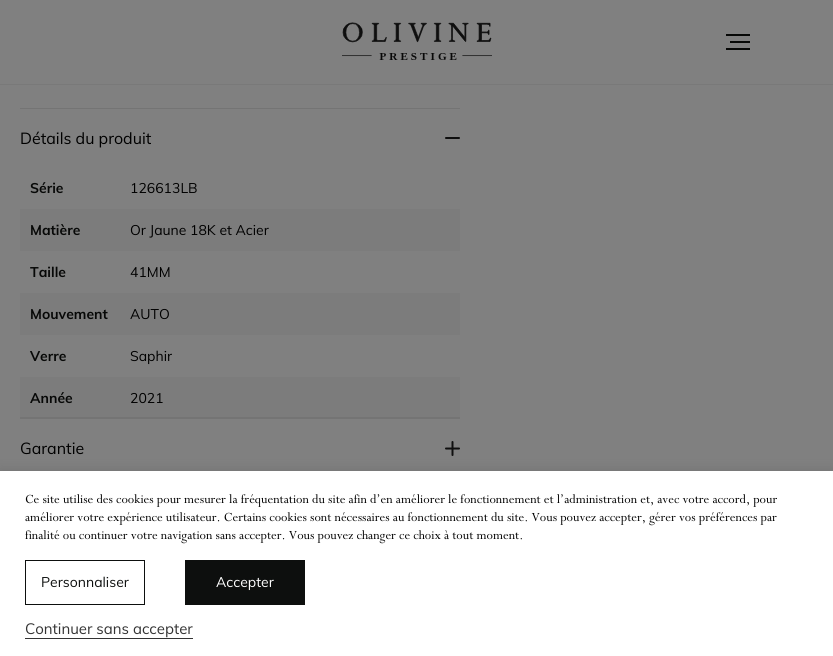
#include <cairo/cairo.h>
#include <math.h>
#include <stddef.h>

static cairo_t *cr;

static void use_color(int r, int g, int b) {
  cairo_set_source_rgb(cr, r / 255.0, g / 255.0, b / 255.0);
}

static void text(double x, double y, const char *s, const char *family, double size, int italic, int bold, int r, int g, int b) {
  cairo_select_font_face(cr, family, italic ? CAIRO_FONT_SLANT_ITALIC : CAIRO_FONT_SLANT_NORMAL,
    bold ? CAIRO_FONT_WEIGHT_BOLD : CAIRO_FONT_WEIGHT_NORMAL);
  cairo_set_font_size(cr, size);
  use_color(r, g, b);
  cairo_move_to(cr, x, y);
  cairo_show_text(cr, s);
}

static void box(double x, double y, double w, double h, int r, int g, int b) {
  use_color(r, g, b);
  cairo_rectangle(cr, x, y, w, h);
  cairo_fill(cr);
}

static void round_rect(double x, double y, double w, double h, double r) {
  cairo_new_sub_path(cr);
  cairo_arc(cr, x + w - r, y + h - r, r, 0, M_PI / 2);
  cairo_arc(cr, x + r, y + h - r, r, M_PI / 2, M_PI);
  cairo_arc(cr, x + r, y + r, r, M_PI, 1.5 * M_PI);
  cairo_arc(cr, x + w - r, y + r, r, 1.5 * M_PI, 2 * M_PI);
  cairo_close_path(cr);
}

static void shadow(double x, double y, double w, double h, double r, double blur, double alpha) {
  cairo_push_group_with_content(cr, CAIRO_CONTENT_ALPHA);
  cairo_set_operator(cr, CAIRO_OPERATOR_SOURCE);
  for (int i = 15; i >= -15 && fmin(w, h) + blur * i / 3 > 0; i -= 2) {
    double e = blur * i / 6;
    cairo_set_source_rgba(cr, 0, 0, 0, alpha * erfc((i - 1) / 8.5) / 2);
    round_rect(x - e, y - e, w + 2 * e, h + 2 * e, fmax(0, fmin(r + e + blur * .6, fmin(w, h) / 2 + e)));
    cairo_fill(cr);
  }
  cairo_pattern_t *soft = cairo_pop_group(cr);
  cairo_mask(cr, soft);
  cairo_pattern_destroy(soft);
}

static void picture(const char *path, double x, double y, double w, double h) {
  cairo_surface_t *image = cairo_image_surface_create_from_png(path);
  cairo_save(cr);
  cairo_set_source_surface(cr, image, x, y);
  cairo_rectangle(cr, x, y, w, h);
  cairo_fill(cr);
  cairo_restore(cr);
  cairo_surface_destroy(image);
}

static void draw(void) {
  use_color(128, 128, 128);
  cairo_paint(cr);
  box(0, 84, 833, 1, 121, 121, 121);
  picture("img_01.png", 342, 22, 150, 38);
  box(726, 34, 24, 2, 7, 8, 7);
  box(730, 41, 20, 2, 7, 8, 7);
  box(726, 48, 24, 2, 7, 8, 7);
  box(20, 108, 440, 1, 116, 116, 116);
  box(20, 417, 440, 2, 116, 116, 116);
  cairo_new_path(cr);
  cairo_move_to(cr, 446, 138);
  cairo_line_to(cr, 459, 138);
  use_color(15, 15, 15);
  cairo_set_line_cap(cr, CAIRO_LINE_CAP_ROUND);
  cairo_stroke(cr);
  box(20, 209, 440, 42, 124, 124, 124);
  box(20, 293, 440, 42, 124, 124, 124);
  box(20, 377, 440, 40, 124, 124, 124);
  cairo_new_path(cr);
  cairo_move_to(cr, 446, 448.5);
  cairo_line_to(cr, 459, 448.5);
  cairo_move_to(cr, 452.5, 442);
  cairo_line_to(cr, 452.5, 455);
  use_color(15, 15, 15);
  cairo_stroke(cr);
  use_color(86, 86, 86);
  shadow(0, 470, 833, 185, 0, 5, 0.3);
  box(0, 471, 833, 185, 255, 255, 255);
  cairo_rectangle(cr, 25.5, 560.5, 119, 44);
  use_color(13, 15, 14);
  cairo_set_line_width(cr, 1);
  cairo_set_line_cap(cr, CAIRO_LINE_CAP_BUTT);
  cairo_stroke(cr);
  box(185, 560, 120, 45, 13, 15, 14);
  box(25, 638, 168, 1, 51, 51, 51);
  text(20, 144, "Détails du produit", "Muli", 16, 0, 0, 0, 0, 0);
  text(30, 193, "Série", "Muli", 14, 0, 1, 7, 8, 7);
  text(130, 193, "126613LB", "Muli", 14, 0, 0, 0, 0, 0);
  text(30, 235, "Matière", "Muli", 14, 0, 1, 7, 8, 7);
  text(130, 235, "Or Jaune 18K et Acier", "Muli", 14, 0, 0, 0, 0, 0);
  text(30, 277, "Taille", "Muli", 14, 0, 1, 7, 8, 7);
  text(130, 277, "41MM", "Muli", 14, 0, 0, 0, 0, 0);
  text(30, 319, "Mouvement", "Muli", 14, 0, 1, 7, 8, 7);
  text(130, 319, "AUTO", "Muli", 14, 0, 0, 0, 0, 0);
  text(30, 361, "Verre", "Muli", 14, 0, 1, 7, 8, 7);
  text(130, 361, "Saphir", "Muli", 14, 0, 0, 0, 0, 0);
  text(30, 403, "Année", "Muli", 14, 0, 1, 7, 8, 7);
  text(130, 403, "2021", "Muli", 14, 0, 0, 0, 0, 0);
  text(20, 454, "Garantie", "Muli", 16, 0, 0, 0, 0, 0);
  text(25, 503, "Ce site utilise des cookies pour mesurer la fréquentation du site afin d’en améliorer le fonctionnement et l’administration et, avec votre accord, pour", "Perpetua", 14, 0, 0, 0, 0, 0);
  text(25, 521, "améliorer votre expérience utilisateur. Certains cookies sont nécessaires au fonctionnement du site. Vous pouvez accepter, gérer vos préférences par", "Perpetua", 14, 0, 0, 0, 0, 0);
  text(25, 539, "finalité ou continuer votre navigation sans accepter. Vous pouvez changer ce choix à tout moment.", "Perpetua", 14, 0, 0, 0, 0, 0);
  text(41, 587, "Personnaliser", "Muli", 14, 0, 0, 13, 15, 14);
  text(216, 587, "Accepter", "Muli", 14, 0, 0, 255, 255, 255);
  text(25, 634, "Continuer sans accepter", "Muli", 15, 0, 0, 51, 51, 51);
}

int main(void) {
  cairo_surface_t *surface = cairo_image_surface_create(CAIRO_FORMAT_RGB24, 833, 656);
  cr = cairo_create(surface);
  cairo_font_options_t *options = cairo_font_options_create();
  cairo_font_options_set_hint_metrics(options, CAIRO_HINT_METRICS_OFF);
  cairo_font_options_set_hint_style(options, CAIRO_HINT_STYLE_NONE);
  cairo_set_font_options(cr, options);
  cairo_set_miter_limit(cr, 4);
  draw();
  cairo_surface_write_to_png(surface, "out.png");
  cairo_font_options_destroy(options);
  cairo_destroy(cr);
  cairo_surface_destroy(surface);
  return 0;
}
